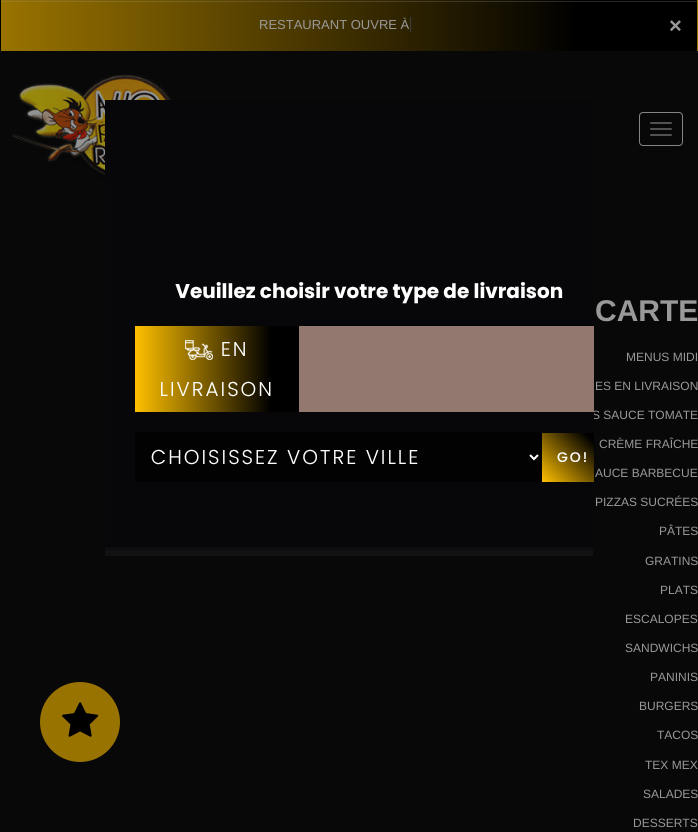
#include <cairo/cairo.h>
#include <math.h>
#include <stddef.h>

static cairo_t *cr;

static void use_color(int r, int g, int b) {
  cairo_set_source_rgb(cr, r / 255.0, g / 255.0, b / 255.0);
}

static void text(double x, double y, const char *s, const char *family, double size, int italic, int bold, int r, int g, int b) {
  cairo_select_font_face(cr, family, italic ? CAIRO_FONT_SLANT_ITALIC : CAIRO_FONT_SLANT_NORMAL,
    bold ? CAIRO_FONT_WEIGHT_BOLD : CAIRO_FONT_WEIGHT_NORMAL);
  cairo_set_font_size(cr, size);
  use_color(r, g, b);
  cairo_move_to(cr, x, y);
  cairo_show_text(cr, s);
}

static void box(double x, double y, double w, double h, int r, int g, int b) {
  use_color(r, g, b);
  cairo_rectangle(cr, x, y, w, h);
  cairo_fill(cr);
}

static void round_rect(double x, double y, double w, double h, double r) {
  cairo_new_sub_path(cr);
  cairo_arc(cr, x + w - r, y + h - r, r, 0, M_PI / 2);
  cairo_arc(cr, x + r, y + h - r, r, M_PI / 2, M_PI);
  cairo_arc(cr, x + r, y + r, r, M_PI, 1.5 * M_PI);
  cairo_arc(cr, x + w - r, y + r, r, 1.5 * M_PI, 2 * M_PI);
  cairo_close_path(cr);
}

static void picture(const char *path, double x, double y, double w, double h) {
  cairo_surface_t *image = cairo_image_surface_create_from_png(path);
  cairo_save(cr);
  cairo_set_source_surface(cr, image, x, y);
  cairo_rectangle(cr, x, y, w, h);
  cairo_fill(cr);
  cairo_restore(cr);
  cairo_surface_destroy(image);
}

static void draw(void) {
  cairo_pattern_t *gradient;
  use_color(8, 8, 9);
  cairo_paint(cr);
  gradient = cairo_pattern_create_linear(-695, 26, 1, 25);
  cairo_pattern_add_color_stop_rgba(gradient, 0, 0.6, 0.451, 0, 1);
  cairo_pattern_add_color_stop_rgba(gradient, 0.83, 0, 0, 0, 1);
  cairo_set_source(cr, gradient);
  cairo_pattern_destroy(gradient);
  cairo_rectangle(cr, 0, 0, 1, 51);
  cairo_fill(cr);
  gradient = cairo_pattern_create_linear(1, 26, 697, 25);
  cairo_pattern_add_color_stop_rgba(gradient, 0, 0.6, 0.451, 0, 1);
  cairo_pattern_add_color_stop_rgba(gradient, 0.83, 0, 0, 0, 1);
  cairo_set_source(cr, gradient);
  cairo_pattern_destroy(gradient);
  cairo_rectangle(cr, 1, 0, 696, 51);
  cairo_fill(cr);
  gradient = cairo_pattern_create_linear(1, 26, 697, 25);
  cairo_pattern_add_color_stop_rgba(gradient, 0, 0.6, 0.49, 0.149, 1);
  cairo_pattern_add_color_stop_rgba(gradient, 0.83, 0.149, 0.149, 0.149, 1);
  cairo_set_source(cr, gradient);
  cairo_pattern_destroy(gradient);
  cairo_rectangle(cr, 1, 1, 696, 1);
  cairo_fill(cr);
  gradient = cairo_pattern_create_linear(697, 26, 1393, 25);
  cairo_pattern_add_color_stop_rgba(gradient, 0, 0.6, 0.451, 0, 1);
  cairo_pattern_add_color_stop_rgba(gradient, 0.83, 0, 0, 0, 1);
  cairo_set_source(cr, gradient);
  cairo_pattern_destroy(gradient);
  cairo_rectangle(cr, 697, 0, 1, 51);
  cairo_fill(cr);
  box(410, 17, 1, 15, 61, 61, 61);
  box(105, 550, 488, 6, 18, 18, 18);
  picture("img_02.png", 12, 74, 160, 106);
  round_rect(639.5, 112.5, 43, 33, 3.5);
  use_color(133, 133, 133);
  cairo_set_line_width(cr, 1);
  cairo_stroke(cr);
  use_color(82, 82, 82);
  round_rect(650, 122, 22, 2, 1);
  cairo_fill(cr);
  round_rect(650, 128, 22, 2, 1);
  cairo_fill(cr);
  round_rect(650, 134, 22, 2, 1);
  cairo_fill(cr);
  use_color(153, 115, 0);
  cairo_arc(cr, 80, 722, 40, 0, 2 * M_PI);
  cairo_fill(cr);
  picture("img_03.png", 62, 702, 37, 35);
  text(259, 29, "RESTAURANT OUVRE À", "Liberation Sans", 13, 0, 0, 153, 153, 153);
  text(669, 33, "×", "Liberation Sans", 22, 0, 1, 153, 153, 153);
  text(595, 321, "CARTE", "Liberation Sans", 30, 0, 1, 153, 153, 153);
  text(626, 361, "MENUS MIDI", "Liberation Sans", 12, 0, 0, 153, 153, 153);
  text(595, 390, "ES EN LIVRAISON", "Liberation Sans", 12, 0, 0, 153, 153, 153);
  text(592, 419, "S SAUCE TOMATE", "Liberation Sans", 12, 0, 0, 153, 153, 153);
  picture("img_01.png", 105, 100, 489, 450);
  text(599, 448, "CRÈME FRAÎCHE", "Liberation Sans", 12, 0, 0, 153, 153, 153);
  text(595, 477, "AUCE BARBECUE", "Liberation Sans", 12, 0, 0, 153, 153, 153);
  text(595, 506, "PIZZAS SUCRÉES", "Liberation Sans", 12, 0, 0, 153, 153, 153);
  text(659, 535, "PÂTES", "Liberation Sans", 12, 0, 0, 153, 153, 153);
  text(645, 565, "GRATINS", "Liberation Sans", 12, 0, 0, 153, 153, 153);
  text(660, 594, "PLATS", "Liberation Sans", 12, 0, 0, 153, 153, 153);
  text(625, 623, "ESCALOPES", "Liberation Sans", 12, 0, 0, 153, 153, 153);
  text(625, 652, "SANDWICHS", "Liberation Sans", 12, 0, 0, 153, 153, 153);
  text(650, 681, "PANINIS", "Liberation Sans", 12, 0, 0, 153, 153, 153);
  text(639, 710, "BURGERS", "Liberation Sans", 12, 0, 0, 153, 153, 153);
  text(657, 739, "TACOS", "Liberation Sans", 12, 0, 0, 153, 153, 153);
  text(645, 769, "TEX MEX", "Liberation Sans", 12, 0, 0, 153, 153, 153);
  text(643, 798, "SALADES", "Liberation Sans", 12, 0, 0, 153, 153, 153);
  text(633, 827, "DESSERTS", "Liberation Sans", 12, 0, 0, 153, 153, 153);
}

int main(void) {
  cairo_surface_t *surface = cairo_image_surface_create(CAIRO_FORMAT_RGB24, 698, 832);
  cr = cairo_create(surface);
  cairo_font_options_t *options = cairo_font_options_create();
  cairo_font_options_set_hint_metrics(options, CAIRO_HINT_METRICS_OFF);
  cairo_font_options_set_hint_style(options, CAIRO_HINT_STYLE_NONE);
  cairo_set_font_options(cr, options);
  cairo_set_miter_limit(cr, 4);
  draw();
  cairo_surface_write_to_png(surface, "out.png");
  cairo_font_options_destroy(options);
  cairo_destroy(cr);
  cairo_surface_destroy(surface);
  return 0;
}
